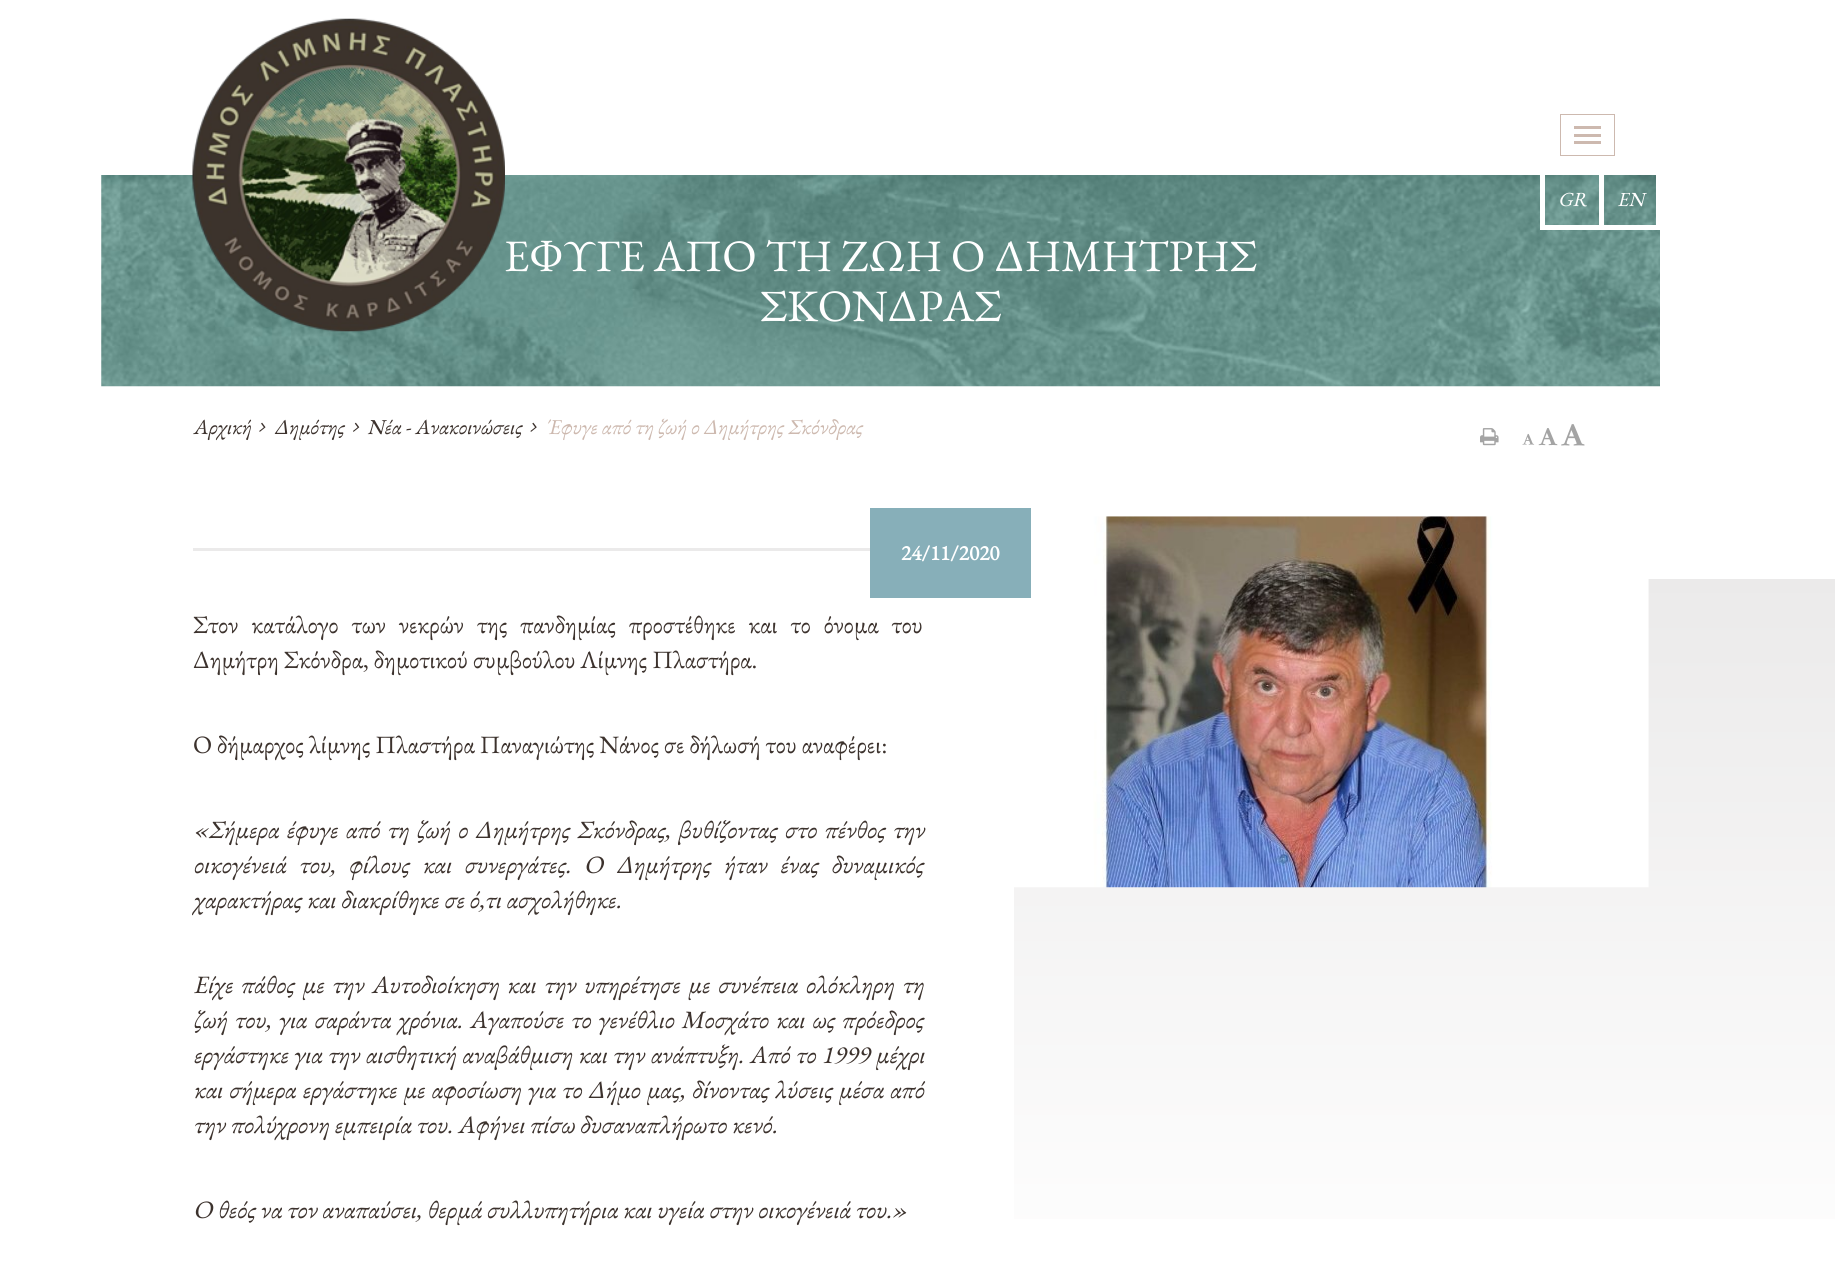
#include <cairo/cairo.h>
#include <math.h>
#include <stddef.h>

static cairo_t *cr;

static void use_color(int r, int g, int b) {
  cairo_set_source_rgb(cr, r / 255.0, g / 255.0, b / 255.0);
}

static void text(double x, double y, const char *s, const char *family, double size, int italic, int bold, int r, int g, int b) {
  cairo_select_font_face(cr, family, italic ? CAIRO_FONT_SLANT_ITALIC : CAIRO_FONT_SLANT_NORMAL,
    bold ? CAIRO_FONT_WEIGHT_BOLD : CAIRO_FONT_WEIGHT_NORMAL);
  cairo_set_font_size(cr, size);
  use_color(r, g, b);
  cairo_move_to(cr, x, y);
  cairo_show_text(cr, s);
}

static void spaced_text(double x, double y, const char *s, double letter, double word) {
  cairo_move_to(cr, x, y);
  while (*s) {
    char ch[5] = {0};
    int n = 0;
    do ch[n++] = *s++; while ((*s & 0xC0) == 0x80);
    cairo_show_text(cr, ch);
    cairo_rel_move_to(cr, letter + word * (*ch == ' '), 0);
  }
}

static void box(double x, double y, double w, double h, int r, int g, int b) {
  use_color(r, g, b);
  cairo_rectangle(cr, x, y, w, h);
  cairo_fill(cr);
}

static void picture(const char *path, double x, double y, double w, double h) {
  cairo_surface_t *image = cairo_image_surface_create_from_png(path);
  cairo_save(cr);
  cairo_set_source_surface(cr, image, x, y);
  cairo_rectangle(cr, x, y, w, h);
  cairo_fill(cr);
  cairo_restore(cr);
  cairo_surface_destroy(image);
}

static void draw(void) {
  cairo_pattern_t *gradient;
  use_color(255, 255, 255);
  cairo_paint(cr);
  cairo_rectangle(cr, 1560.5, 114.5, 54, 41);
  use_color(205, 185, 175);
  cairo_set_line_width(cr, 1);
  cairo_stroke(cr);
  box(1574, 126, 27, 3, 205, 185, 175);
  box(1574, 134, 27, 3, 205, 185, 175);
  box(1574, 141, 27, 3, 205, 185, 175);
  picture("img_02.png", 101, 175, 1559, 212);
  picture("img_01.png", 192, 18, 313, 314);
  box(1540, 225, 59, 5, 255, 255, 255);
  box(1540, 175, 5, 55, 255, 255, 255);
  cairo_save(cr);
  cairo_rectangle(cr, 101, 175, 1559, 211);
  cairo_clip(cr);
  cairo_rectangle(cr, 1601.5, 171.5, 57, 56);
  cairo_set_line_width(cr, 5);
  cairo_stroke(cr);
  cairo_restore(cr);
  picture("img_03.png", 259, 422, 7, 10);
  picture("img_04.png", 353, 422, 7, 10);
  picture("img_05.png", 530, 422, 7, 10);
  picture("img_06.png", 1480, 428, 19, 18);
  picture("img_07.png", 1522, 433, 13, 12);
  picture("img_08.png", 1538, 428, 20, 18);
  picture("img_09.png", 1561, 424, 24, 22);
  gradient = cairo_pattern_create_linear(1424, 579, 1424, 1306);
  cairo_pattern_add_color_stop_rgba(gradient, 0, 0.922, 0.918, 0.918, 1);
  cairo_pattern_add_color_stop_rgba(gradient, 1, 1, 1, 1, 1);
  cairo_set_source(cr, gradient);
  cairo_pattern_destroy(gradient);
  cairo_rectangle(cr, 1014, 579, 821, 640);
  cairo_fill(cr);
  picture("img_10.png", 951, 516, 698, 372);
  box(870, 508, 161, 90, 135, 175, 185);
  box(193, 548, 677, 3, 235, 234, 234);
  text(1558, 206, "GR", "EB Garamond", 20, 1, 0, 255, 255, 255);
  text(1617, 206, "EN", "EB Garamond", 20, 1, 0, 255, 255, 255);
  text(504, 271, "ΕΦΥΓΕ ΑΠΟ ΤΗ ΖΩΗ Ο ΔΗΜΗΤΡΗΣ", "EB Garamond", 45, 0, 0, 255, 255, 255);
  text(760, 321, "ΣΚΟΝΔΡΑΣ", "EB Garamond", 45, 0, 0, 255, 255, 255);
  text(193, 434, "Αρχική", "EB Garamond", 21.25, 1, 0, 60, 50, 45);
  text(274, 434, "Δημότης", "EB Garamond", 21.25, 1, 0, 60, 50, 45);
  text(367, 434, "Νέα - Ανακοινώσεις", "EB Garamond", 21.25, 1, 0, 60, 50, 45);
  text(545, 434, "Έφυγε από τη ζωή ο Δημήτρης Σκόνδρας", "EB Garamond", 21.25, 1, 0, 205, 185, 175);
  text(901, 560, "24/11/2020", "EB Garamond", 21.25, 0, 1, 255, 255, 255);
  cairo_select_font_face(cr, "EB Garamond", CAIRO_FONT_SLANT_NORMAL, CAIRO_FONT_WEIGHT_NORMAL);
  cairo_set_font_size(cr, 25);
  use_color(60, 50, 45);
  spaced_text(193, 633, "Στον κατάλογο των νεκρών της πανδημίας προστέθηκε και το όνομα του", 0, 8);
  text(193, 668, "Δημήτρη Σκόνδρα, δημοτικού συμβούλου Λίμνης Πλαστήρα.", "EB Garamond", 25, 0, 0, 60, 50, 45);
  text(193, 753, "Ο δήμαρχος λίμνης Πλαστήρα Παναγιώτης Νάνος σε δήλωσή του αναφέρει:", "EB Garamond", 25, 0, 0, 60, 50, 45);
  cairo_select_font_face(cr, "EB Garamond", CAIRO_FONT_SLANT_ITALIC, CAIRO_FONT_WEIGHT_NORMAL);
  spaced_text(193, 838, "«Σήμερα έφυγε από τη ζωή ο Δημήτρης Σκόνδρας, βυθίζοντας στο πένθος την", 0, 2.5);
  spaced_text(193, 873, "οικογένειά του, φίλους και συνεργάτες. Ο Δημήτρης ήταν ένας δυναμικός", 0, 8);
  text(193, 908, "χαρακτήρας και διακρίθηκε σε ό,τι ασχολήθηκε.", "EB Garamond", 25, 1, 0, 60, 50, 45);
  spaced_text(193, 993, "Είχε πάθος με την Αυτοδιοίκηση και την υπηρέτησε με συνέπεια ολόκληρη τη", 0, 2.9);
  spaced_text(193, 1028, "ζωή του, για σαράντα χρόνια. Αγαπούσε το γενέθλιο Μοσχάτο και ως πρόεδρος", 0, 2.25);
  spaced_text(193, 1063, "εργάστηκε για την αισθητική αναβάθμιση και την ανάπτυξη. Από το 1999 μέχρι", 0, 0.75);
  spaced_text(193, 1098, "και σήμερα εργάστηκε με αφοσίωση για το Δήμο μας, δίνοντας λύσεις μέσα από", 0, 1.25);
  text(193, 1133, "την πολύχρονη εμπειρία του. Αφήνει πίσω δυσαναπλήρωτο κενό.", "EB Garamond", 25, 1, 0, 60, 50, 45);
  text(193, 1218, "Ο θεός να τον αναπαύσει, θερμά συλλυπητήρια και υγεία στην οικογένειά του.»", "EB Garamond", 25, 1, 0, 60, 50, 45);
}

int main(void) {
  cairo_surface_t *surface = cairo_image_surface_create(CAIRO_FORMAT_RGB24, 1835, 1282);
  cr = cairo_create(surface);
  cairo_font_options_t *options = cairo_font_options_create();
  cairo_font_options_set_hint_metrics(options, CAIRO_HINT_METRICS_OFF);
  cairo_font_options_set_hint_style(options, CAIRO_HINT_STYLE_NONE);
  cairo_set_font_options(cr, options);
  cairo_set_miter_limit(cr, 4);
  draw();
  cairo_surface_write_to_png(surface, "out.png");
  cairo_font_options_destroy(options);
  cairo_destroy(cr);
  cairo_surface_destroy(surface);
  return 0;
}
